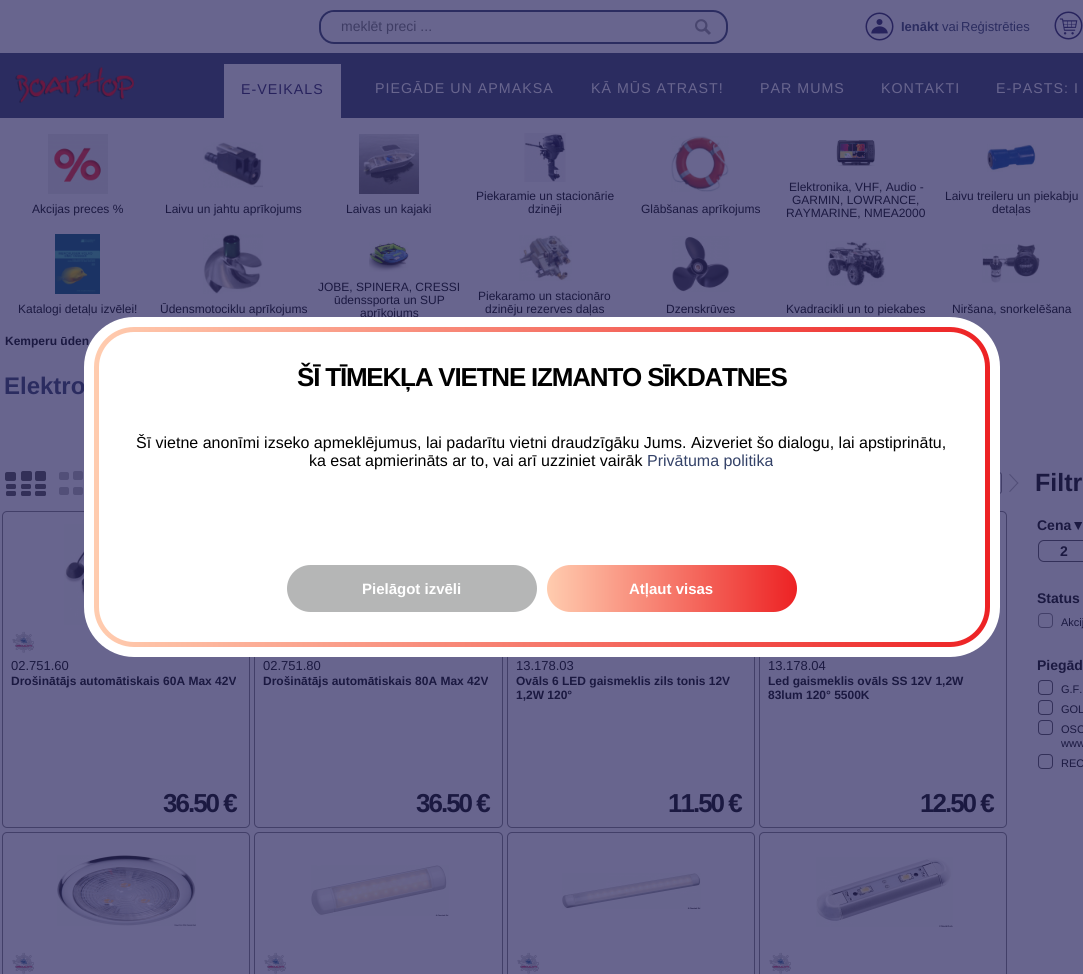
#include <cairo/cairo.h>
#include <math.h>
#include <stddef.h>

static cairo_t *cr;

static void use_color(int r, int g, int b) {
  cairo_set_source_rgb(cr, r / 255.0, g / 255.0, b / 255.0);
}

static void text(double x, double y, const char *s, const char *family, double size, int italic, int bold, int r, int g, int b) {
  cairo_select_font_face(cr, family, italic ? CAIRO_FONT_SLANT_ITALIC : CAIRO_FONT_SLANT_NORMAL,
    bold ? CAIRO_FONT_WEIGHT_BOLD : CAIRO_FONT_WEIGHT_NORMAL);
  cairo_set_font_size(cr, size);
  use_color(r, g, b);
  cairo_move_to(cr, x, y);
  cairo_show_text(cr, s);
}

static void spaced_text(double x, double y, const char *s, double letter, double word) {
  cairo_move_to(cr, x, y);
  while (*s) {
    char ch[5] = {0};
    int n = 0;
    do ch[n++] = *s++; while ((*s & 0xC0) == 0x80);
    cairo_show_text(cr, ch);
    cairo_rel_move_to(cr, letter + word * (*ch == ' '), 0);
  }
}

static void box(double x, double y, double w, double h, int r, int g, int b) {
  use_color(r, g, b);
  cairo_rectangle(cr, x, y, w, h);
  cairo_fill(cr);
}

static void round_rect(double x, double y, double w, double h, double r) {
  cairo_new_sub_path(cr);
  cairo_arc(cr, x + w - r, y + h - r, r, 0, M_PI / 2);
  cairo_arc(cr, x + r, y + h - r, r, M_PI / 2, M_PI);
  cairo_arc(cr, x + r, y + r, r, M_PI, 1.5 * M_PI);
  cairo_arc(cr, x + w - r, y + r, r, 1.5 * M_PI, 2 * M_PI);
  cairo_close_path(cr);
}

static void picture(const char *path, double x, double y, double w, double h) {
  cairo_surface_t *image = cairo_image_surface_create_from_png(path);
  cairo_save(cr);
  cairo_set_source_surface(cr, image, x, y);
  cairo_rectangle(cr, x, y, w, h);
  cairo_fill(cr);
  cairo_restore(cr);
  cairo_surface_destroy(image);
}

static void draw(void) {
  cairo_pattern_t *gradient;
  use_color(104, 101, 142);
  cairo_paint(cr);
  round_rect(320, 11, 407, 32, 14);
  use_color(43, 44, 96);
  cairo_stroke(cr);
  use_color(104, 101, 142);
  round_rect(321, 12, 356, 28, 14);
  cairo_fill(cr);
  picture("img_01.png", 695, 19, 16, 16);
  picture("img_02.png", 865, 12, 29, 29);
  picture("img_03.png", 1054, 11, 29, 29);
  box(0, 53, 1083, 65, 43, 44, 96);
  picture("img_04.png", 15, 66, 120, 38);
  box(224, 64, 117, 54, 104, 101, 142);
  picture("img_05.png", 48, 134, 60, 60);
  picture("img_06.png", 203, 142, 60, 46);
  picture("img_07.png", 359, 134, 60, 60);
  picture("img_08.png", 524, 133, 42, 49);
  picture("img_09.png", 671, 136, 58, 56);
  picture("img_10.png", 836, 140, 39, 26);
  picture("img_11.png", 987, 144, 49, 28);
  picture("img_12.png", 55, 234, 45, 60);
  picture("img_13.png", 203, 234, 60, 60);
  picture("img_14.png", 369, 242, 40, 30);
  picture("img_15.png", 519, 235, 53, 46);
  picture("img_16.png", 672, 236, 58, 56);
  picture("img_17.png", 826, 241, 60, 45);
  picture("img_18.png", 982, 244, 58, 39);
  picture("img_19.png", 5, 471, 41, 25);
  use_color(82, 79, 120);
  round_rect(59, 472, 10, 8, 2);
  cairo_fill(cr);
  round_rect(73, 471, 10, 9, 2);
  cairo_fill(cr);
  round_rect(59, 487, 10, 8, 2);
  cairo_fill(cr);
  round_rect(73, 487, 10, 8, 2);
  cairo_fill(cr);
  round_rect(980.5, 472.5, 21, 21, 2.5);
  use_color(66, 63, 104);
  cairo_set_line_width(cr, 1);
  cairo_stroke(cr);
  picture("img_20.png", 1009, 474, 10, 18);
  round_rect(1038.5, 540.5, 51, 21, 5.5);
  use_color(51, 48, 89);
  cairo_stroke(cr);
  round_rect(1038.5, 613.5, 14, 14, 3.5);
  use_color(66, 63, 104);
  cairo_stroke(cr);
  round_rect(1038.5, 680.5, 14, 14, 3.5);
  use_color(51, 48, 89);
  cairo_stroke(cr);
  round_rect(1038.5, 700.5, 14, 14, 3.5);
  cairo_stroke(cr);
  round_rect(1038.5, 720.5, 14, 14, 3.5);
  cairo_stroke(cr);
  round_rect(1038.5, 754.5, 14, 14, 3.5);
  cairo_stroke(cr);
  round_rect(2.5, 511.5, 247, 316, 4.5);
  use_color(66, 63, 104);
  cairo_stroke(cr);
  picture("img_21.png", 64, 524, 24, 101);
  picture("img_22.png", 12, 631, 22, 22);
  round_rect(254.5, 511.5, 248, 316, 4.5);
  cairo_stroke(cr);
  round_rect(507.5, 511.5, 247, 316, 4.5);
  cairo_stroke(cr);
  round_rect(759.5, 511.5, 247, 316, 4.5);
  cairo_stroke(cr);
  round_rect(2.5, 832.5, 247, 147, 4.5);
  cairo_stroke(cr);
  picture("img_23.png", 57, 855, 139, 71);
  picture("img_22.png", 12, 952, 22, 22);
  round_rect(254.5, 832.5, 248, 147, 4.5);
  cairo_stroke(cr);
  picture("img_24.png", 311, 865, 138, 51);
  picture("img_22.png", 264, 952, 22, 22);
  round_rect(507.5, 832.5, 247, 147, 4.5);
  cairo_stroke(cr);
  picture("img_25.png", 562, 873, 139, 36);
  picture("img_22.png", 517, 952, 22, 22);
  round_rect(759.5, 832.5, 247, 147, 4.5);
  cairo_stroke(cr);
  picture("img_26.png", 816, 857, 137, 70);
  picture("img_22.png", 769, 952, 22, 22);
  text(341, 31, "meklēt preci ...", "Liberation Sans", 14, 0, 0, 62, 60, 100);
  text(901, 31, "Ienākt", "Liberation Sans", 13, 0, 1, 43, 44, 96);
  text(942, 31, "vai", "Liberation Sans", 13, 0, 0, 43, 44, 96);
  text(961, 31, "Reģistrēties", "Liberation Sans", 13, 0, 0, 43, 44, 96);
  cairo_set_font_size(cr, 14.25);
  use_color(39, 34, 93);
  spaced_text(241, 94, "E-VEIKALS", 1, 0);
  use_color(104, 101, 142);
  spaced_text(375, 93, "PIEGĀDE UN APMAKSA", 1, 0);
  spaced_text(591, 93, "KĀ MŪS ATRAST!", 1, 0);
  spaced_text(760, 93, "PAR MUMS", 1, 0);
  spaced_text(881, 93, "KONTAKTI", 1, 0);
  spaced_text(996, 93, "E-PASTS: I", 1, 0);
  text(32, 213, "Akcijas preces %", "Liberation Sans", 12, 0, 0, 27, 25, 65);
  text(165, 213, "Laivu un jahtu aprīkojums", "Liberation Sans", 12, 0, 0, 27, 25, 65);
  text(346, 213, "Laivas un kajaki", "Liberation Sans", 12, 0, 0, 27, 25, 65);
  text(476, 200, "Piekaramie un stacionārie", "Liberation Sans", 12, 0, 0, 27, 25, 65);
  text(528, 213, "dzinēji", "Liberation Sans", 12, 0, 0, 27, 25, 65);
  text(641, 213, "Glābšanas aprīkojums", "Liberation Sans", 12, 0, 0, 27, 25, 65);
  text(789, 191, "Elektronika, VHF, Audio -", "Liberation Sans", 12, 0, 0, 27, 25, 65);
  text(792, 204, "GARMIN, LOWRANCE,", "Liberation Sans", 12, 0, 0, 27, 25, 65);
  text(786, 217, "RAYMARINE, NMEA2000", "Liberation Sans", 12, 0, 0, 27, 25, 65);
  text(945, 200, "Laivu treileru un piekabju", "Liberation Sans", 12, 0, 0, 27, 25, 65);
  text(992, 213, "detaļas", "Liberation Sans", 12, 0, 0, 27, 25, 65);
  text(18, 313, "Katalogi detaļu izvēlei!", "Liberation Sans", 12, 0, 0, 27, 25, 65);
  text(160, 313, "Ūdensmotociklu aprīkojums", "Liberation Sans", 12, 0, 0, 27, 25, 65);
  text(318, 291, "JOBE, SPINERA, CRESSI", "Liberation Sans", 12, 0, 0, 27, 25, 65);
  text(334, 304, "ūdenssporta un SUP", "Liberation Sans", 12, 0, 0, 27, 25, 65);
  text(360, 317, "aprīkojums", "Liberation Sans", 12, 0, 0, 27, 25, 65);
  text(478, 300, "Piekaramo un stacionāro", "Liberation Sans", 12, 0, 0, 27, 25, 65);
  text(485, 313, "dzinēju rezerves daļas", "Liberation Sans", 12, 0, 0, 27, 25, 65);
  text(666, 313, "Dzenskrūves", "Liberation Sans", 12, 0, 0, 27, 25, 65);
  text(786, 313, "Kvadracikli un to piekabes", "Liberation Sans", 12, 0, 0, 27, 25, 65);
  text(952, 313, "Niršana, snorkelēšana", "Liberation Sans", 12, 0, 0, 27, 25, 65);
  text(5, 345, "Kemperu ūden", "Liberation Sans", 12, 0, 1, 27, 25, 65);
  text(4, 394, "Elektro", "Liberation Sans", 24, 0, 1, 43, 44, 96);
  text(1035, 491, "Filtr", "Liberation Sans", 25, 0, 1, 27, 25, 65);
  text(1037, 530, "Cena▼", "Liberation Sans", 14, 0, 1, 27, 25, 65);
  text(1060, 556, "2", "Liberation Sans", 14, 0, 1, 27, 25, 65);
  text(1037, 603, "Status", "Liberation Sans", 14, 0, 1, 27, 25, 65);
  text(1061, 626, "Akcij", "Liberation Sans", 11, 0, 0, 27, 25, 65);
  text(1037, 670, "Piegād", "Liberation Sans", 14, 0, 1, 27, 25, 65);
  text(1061, 693, "G.F.", "Liberation Sans", 11, 0, 0, 27, 25, 65);
  text(1061, 713, "GOL", "Liberation Sans", 11, 0, 0, 27, 25, 65);
  text(1061, 733, "OSC", "Liberation Sans", 11, 0, 0, 27, 25, 65);
  text(1061, 747, "www", "Liberation Sans", 11, 0, 0, 27, 25, 65);
  text(1061, 767, "REC", "Liberation Sans", 11, 0, 0, 27, 25, 65);
  text(11, 670, "02.751.60", "Liberation Sans", 13, 0, 0, 27, 25, 65);
  text(11, 685, "Drošinātājs automātiskais 60A Max 42V", "Liberation Sans", 12, 0, 1, 27, 25, 65);
  cairo_set_font_size(cr, 26);
  spaced_text(163, 812, "36.50 €", -2, 0);
  text(263, 670, "02.751.80", "Liberation Sans", 13, 0, 0, 27, 25, 65);
  text(263, 685, "Drošinātājs automātiskais 80A Max 42V", "Liberation Sans", 12, 0, 1, 27, 25, 65);
  cairo_set_font_size(cr, 26);
  spaced_text(416, 812, "36.50 €", -2, 0);
  text(516, 670, "13.178.03", "Liberation Sans", 13, 0, 0, 27, 25, 65);
  text(516, 685, "Ovāls 6 LED gaismeklis zils tonis 12V", "Liberation Sans", 12, 0, 1, 27, 25, 65);
  text(516, 699, "1,2W 120°", "Liberation Sans", 12, 0, 1, 27, 25, 65);
  cairo_set_font_size(cr, 26);
  spaced_text(668, 812, "11.50 €", -2, 0);
  text(768, 670, "13.178.04", "Liberation Sans", 13, 0, 0, 27, 25, 65);
  text(768, 685, "Led gaismeklis ovāls SS 12V 1,2W", "Liberation Sans", 12, 0, 1, 27, 25, 65);
  text(768, 699, "83lum 120° 5500K", "Liberation Sans", 12, 0, 1, 27, 25, 65);
  cairo_set_font_size(cr, 26);
  spaced_text(920, 812, "12.50 €", -2, 0);
  use_color(255, 255, 255);
  round_rect(84, 317, 916, 340, 50);
  cairo_fill(cr);
  gradient = cairo_pattern_create_linear(990, 487, 94, 487);
  cairo_pattern_add_color_stop_rgba(gradient, 0, 0.929, 0.133, 0.141, 1);
  cairo_pattern_add_color_stop_rgba(gradient, 1, 1, 0.8, 0.686, 1);
  cairo_set_source(cr, gradient);
  cairo_pattern_destroy(gradient);
  round_rect(94, 327, 896, 320, 40);
  cairo_fill(cr);
  use_color(255, 255, 255);
  round_rect(99, 332, 886, 310, 35);
  cairo_fill(cr);
  use_color(0, 0, 0);
  spaced_text(297, 386, "ŠĪ TĪMEKĻA VIETNE IZMANTO SĪKDATNES", -1.2, 0);
  text(136, 448, "Šī vietne anonīmi izseko apmeklējumus, lai padarītu vietni draudzīgāku Jums. Aizveriet šo dialogu, lai apstiprinātu,", "Liberation Sans", 16, 0, 0, 0, 0, 0);
  text(309, 466, "ka esat apmierināts ar to, vai arī uzziniet vairāk", "Liberation Sans", 16, 0, 0, 0, 0, 0);
  text(647, 466, "Privātuma politika", "Liberation Sans", 16, 0, 0, 52, 66, 104);
  use_color(181, 182, 182);
  round_rect(287, 565, 250, 47, 23.5);
  cairo_fill(cr);
  text(362, 594, "Pielāgot izvēli", "Liberation Sans", 15, 0, 1, 255, 255, 255);
  gradient = cairo_pattern_create_linear(797, 589, 547, 589);
  cairo_pattern_add_color_stop_rgba(gradient, 0, 0.929, 0.133, 0.141, 1);
  cairo_pattern_add_color_stop_rgba(gradient, 1, 1, 0.8, 0.686, 1);
  cairo_set_source(cr, gradient);
  cairo_pattern_destroy(gradient);
  round_rect(547, 565, 250, 47, 23.5);
  cairo_fill(cr);
  text(629, 594, "Atļaut visas", "Liberation Sans", 15, 0, 1, 255, 255, 255);
}

int main(void) {
  cairo_surface_t *surface = cairo_image_surface_create(CAIRO_FORMAT_RGB24, 1083, 974);
  cr = cairo_create(surface);
  cairo_font_options_t *options = cairo_font_options_create();
  cairo_font_options_set_hint_metrics(options, CAIRO_HINT_METRICS_OFF);
  cairo_font_options_set_hint_style(options, CAIRO_HINT_STYLE_NONE);
  cairo_set_font_options(cr, options);
  cairo_set_miter_limit(cr, 4);
  draw();
  cairo_surface_write_to_png(surface, "out.png");
  cairo_font_options_destroy(options);
  cairo_destroy(cr);
  cairo_surface_destroy(surface);
  return 0;
}
